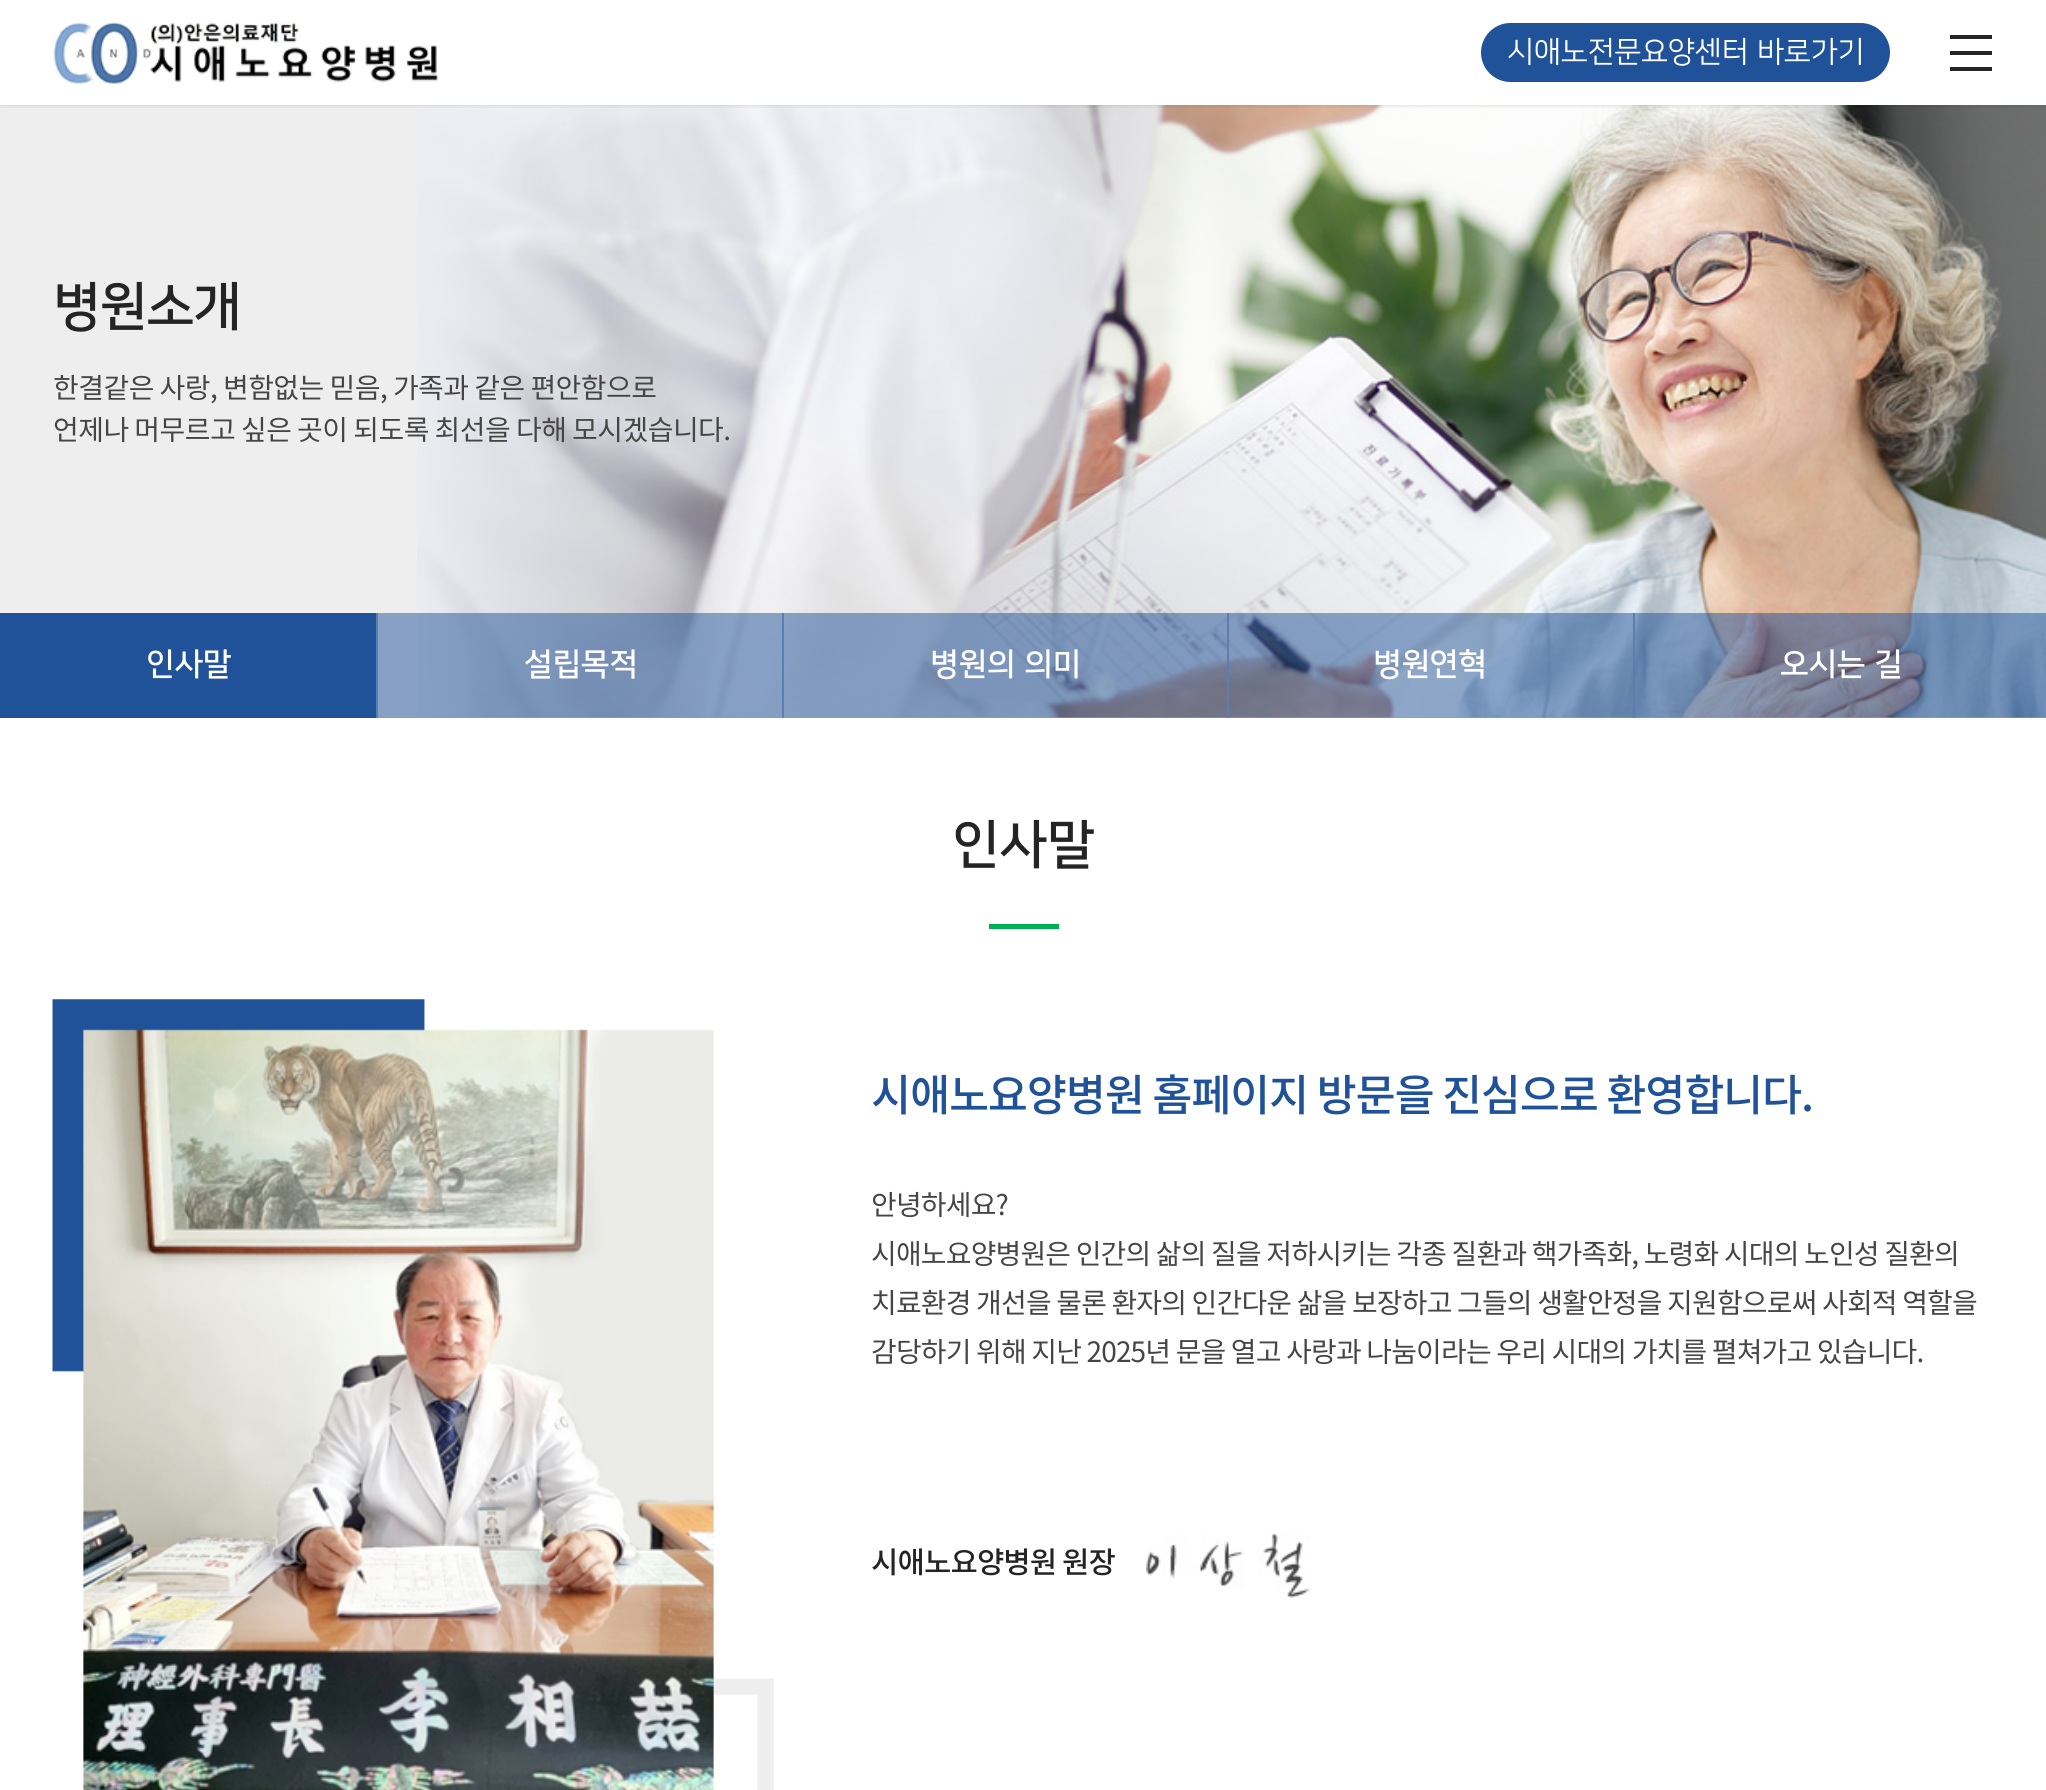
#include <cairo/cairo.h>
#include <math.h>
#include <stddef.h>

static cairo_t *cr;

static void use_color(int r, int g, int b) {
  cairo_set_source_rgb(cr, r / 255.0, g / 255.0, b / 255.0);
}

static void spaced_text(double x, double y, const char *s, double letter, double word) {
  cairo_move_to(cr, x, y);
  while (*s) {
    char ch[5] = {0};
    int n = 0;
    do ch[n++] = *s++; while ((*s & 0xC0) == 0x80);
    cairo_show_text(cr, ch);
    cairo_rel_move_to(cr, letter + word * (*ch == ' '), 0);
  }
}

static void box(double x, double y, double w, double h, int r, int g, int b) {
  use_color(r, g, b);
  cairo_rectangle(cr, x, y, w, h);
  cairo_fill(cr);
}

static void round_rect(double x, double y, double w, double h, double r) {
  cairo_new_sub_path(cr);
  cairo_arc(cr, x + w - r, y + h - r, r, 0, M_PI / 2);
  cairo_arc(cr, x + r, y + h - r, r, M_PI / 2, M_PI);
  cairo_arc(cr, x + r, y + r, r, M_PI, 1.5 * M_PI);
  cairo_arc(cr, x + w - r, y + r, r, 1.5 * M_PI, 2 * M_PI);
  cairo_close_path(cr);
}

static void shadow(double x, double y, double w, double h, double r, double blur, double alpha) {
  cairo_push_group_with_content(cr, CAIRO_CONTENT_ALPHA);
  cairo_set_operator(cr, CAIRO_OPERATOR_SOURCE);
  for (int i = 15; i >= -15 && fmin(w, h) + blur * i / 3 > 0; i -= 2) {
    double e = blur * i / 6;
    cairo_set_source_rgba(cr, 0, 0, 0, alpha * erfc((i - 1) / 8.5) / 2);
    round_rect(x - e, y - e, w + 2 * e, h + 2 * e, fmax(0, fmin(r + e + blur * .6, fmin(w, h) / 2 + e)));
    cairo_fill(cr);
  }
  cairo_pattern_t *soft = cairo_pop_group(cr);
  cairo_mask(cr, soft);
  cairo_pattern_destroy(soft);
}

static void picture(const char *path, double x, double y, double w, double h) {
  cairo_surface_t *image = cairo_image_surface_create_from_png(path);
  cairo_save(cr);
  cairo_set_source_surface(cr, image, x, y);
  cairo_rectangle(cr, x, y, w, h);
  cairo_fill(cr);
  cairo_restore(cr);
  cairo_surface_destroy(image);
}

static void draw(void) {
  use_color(255, 255, 255);
  cairo_paint(cr);
  box(0, 105, 2046, 613, 238, 238, 238);
  picture("img_02.png", 417, 105, 1629, 613);
  cairo_save(cr);
  cairo_rectangle(cr, 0, 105, 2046, 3);
  cairo_clip(cr);
  use_color(0, 0, 0);
  shadow(0, 0, 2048, 105, 0, 2.5, 0.15);
  cairo_restore(cr);
  picture("img_01.png", 53, 21, 386, 63);
  use_color(32, 82, 153);
  round_rect(1481, 23, 409, 59, 29.5);
  cairo_fill(cr);
  box(1950, 51, 42, 4, 36, 36, 36);
  box(1950, 35, 42, 4, 36, 36, 36);
  box(1950, 67, 42, 4, 36, 36, 36);
  box(376, 613, 2, 105, 90, 126, 176);
  box(0, 613, 376, 105, 32, 82, 153);
  box(782, 613, 2, 105, 90, 126, 176);
  cairo_set_source_rgba(cr, 0.125, 0.322, 0.6, 0.5);
  cairo_rectangle(cr, 378, 613, 404, 105);
  cairo_fill(cr);
  box(1227, 613, 2, 105, 90, 126, 176);
  cairo_set_source_rgba(cr, 0.125, 0.322, 0.6, 0.5);
  cairo_rectangle(cr, 784, 613, 443, 105);
  cairo_fill(cr);
  box(1633, 613, 2, 105, 90, 126, 176);
  cairo_set_source_rgba(cr, 0.125, 0.322, 0.6, 0.5);
  cairo_rectangle(cr, 1229, 613, 404, 105);
  cairo_fill(cr);
  cairo_rectangle(cr, 1635, 613, 411, 105);
  cairo_fill(cr);
  box(989, 924, 70, 5, 0, 176, 80);
  picture("img_03.png", 52, 999, 722, 791);
  picture("img_04.png", 1146, 1533, 165, 65);
  cairo_select_font_face(cr, "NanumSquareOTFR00", CAIRO_FONT_SLANT_NORMAL, CAIRO_FONT_WEIGHT_NORMAL);
  cairo_set_font_size(cr, 29.75);
  use_color(255, 255, 255);
  spaced_text(1507, 61, "시애노전문요양센터", -0.25, 0);
  spaced_text(1757, 61, "바로가기", -0.25, 0);
  cairo_select_font_face(cr, "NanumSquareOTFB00", CAIRO_FONT_SLANT_NORMAL, CAIRO_FONT_WEIGHT_BOLD);
  cairo_set_font_size(cr, 52.5);
  use_color(36, 36, 36);
  spaced_text(53, 323, "병원소개", -1, 0);
  cairo_select_font_face(cr, "Noto Sans KR", CAIRO_FONT_SLANT_NORMAL, CAIRO_FONT_WEIGHT_NORMAL);
  cairo_set_font_size(cr, 28);
  use_color(69, 69, 69);
  spaced_text(53, 398, "한결같은 사랑, 변함없는 믿음, 가족과 같은 편안함으로", -0.55, 0);
  spaced_text(53, 440, "언제나 머무르고 싶은 곳이 되도록 최선을 다해 모시겠습니다.", -0.55, 0);
  cairo_select_font_face(cr, "NanumSquareOTFB00", CAIRO_FONT_SLANT_NORMAL, CAIRO_FONT_WEIGHT_BOLD);
  cairo_set_font_size(cr, 31.5);
  use_color(255, 255, 255);
  spaced_text(146, 674, "인사말", -0.25, 0);
  spaced_text(524, 674, "설립목적", -0.25, 0);
  spaced_text(930, 674, "병원의", -0.25, 0);
  spaced_text(1024, 674, "의미", -0.25, 0);
  spaced_text(1373, 674, "병원연혁", -0.25, 0);
  spaced_text(1780, 674, "오시는", -0.25, 0);
  spaced_text(1874, 674, "길", -0.25, 0);
  cairo_set_font_size(cr, 52.5);
  use_color(36, 36, 36);
  spaced_text(952, 861, "인사말", -0.25, 0);
  cairo_select_font_face(cr, "Noto Sans KR Medium", CAIRO_FONT_SLANT_NORMAL, CAIRO_FONT_WEIGHT_NORMAL);
  cairo_set_font_size(cr, 43.75);
  use_color(32, 82, 153);
  spaced_text(871, 1111, "시애노요양병원 홈페이지 방문을 진심으로 환영합니다.", -1.3, 0);
  cairo_select_font_face(cr, "Noto Sans KR", CAIRO_FONT_SLANT_NORMAL, CAIRO_FONT_WEIGHT_NORMAL);
  cairo_set_font_size(cr, 28);
  use_color(69, 69, 69);
  spaced_text(871, 1215, "안녕하세요?", -0.85, 0);
  spaced_text(871, 1264, "시애노요양병원은 인간의 삶의 질을 저하시키는 각종 질환과 핵가족화, 노령화 시대의 노인성 질환의", -0.85, 0);
  spaced_text(871, 1313, "치료환경 개선을 물론 환자의 인간다운 삶을 보장하고 그들의 생활안정을 지원함으로써 사회적 역할을", -0.85, 0);
  spaced_text(871, 1362, "감당하기 위해 지난 2025년 문을 열고 사랑과 나눔이라는 우리 시대의 가치를 펼쳐가고 있습니다.", -0.85, 0);
  cairo_select_font_face(cr, "Noto Sans KR Medium", CAIRO_FONT_SLANT_NORMAL, CAIRO_FONT_WEIGHT_NORMAL);
  cairo_set_font_size(cr, 29.75);
  use_color(36, 36, 36);
  spaced_text(871, 1573, "시애노요양병원 원장", -0.9, 0);
}

int main(void) {
  cairo_surface_t *surface = cairo_image_surface_create(CAIRO_FORMAT_RGB24, 2046, 1790);
  cr = cairo_create(surface);
  cairo_font_options_t *options = cairo_font_options_create();
  cairo_font_options_set_hint_metrics(options, CAIRO_HINT_METRICS_OFF);
  cairo_font_options_set_hint_style(options, CAIRO_HINT_STYLE_NONE);
  cairo_set_font_options(cr, options);
  cairo_set_miter_limit(cr, 4);
  draw();
  cairo_surface_write_to_png(surface, "out.png");
  cairo_font_options_destroy(options);
  cairo_destroy(cr);
  cairo_surface_destroy(surface);
  return 0;
}
